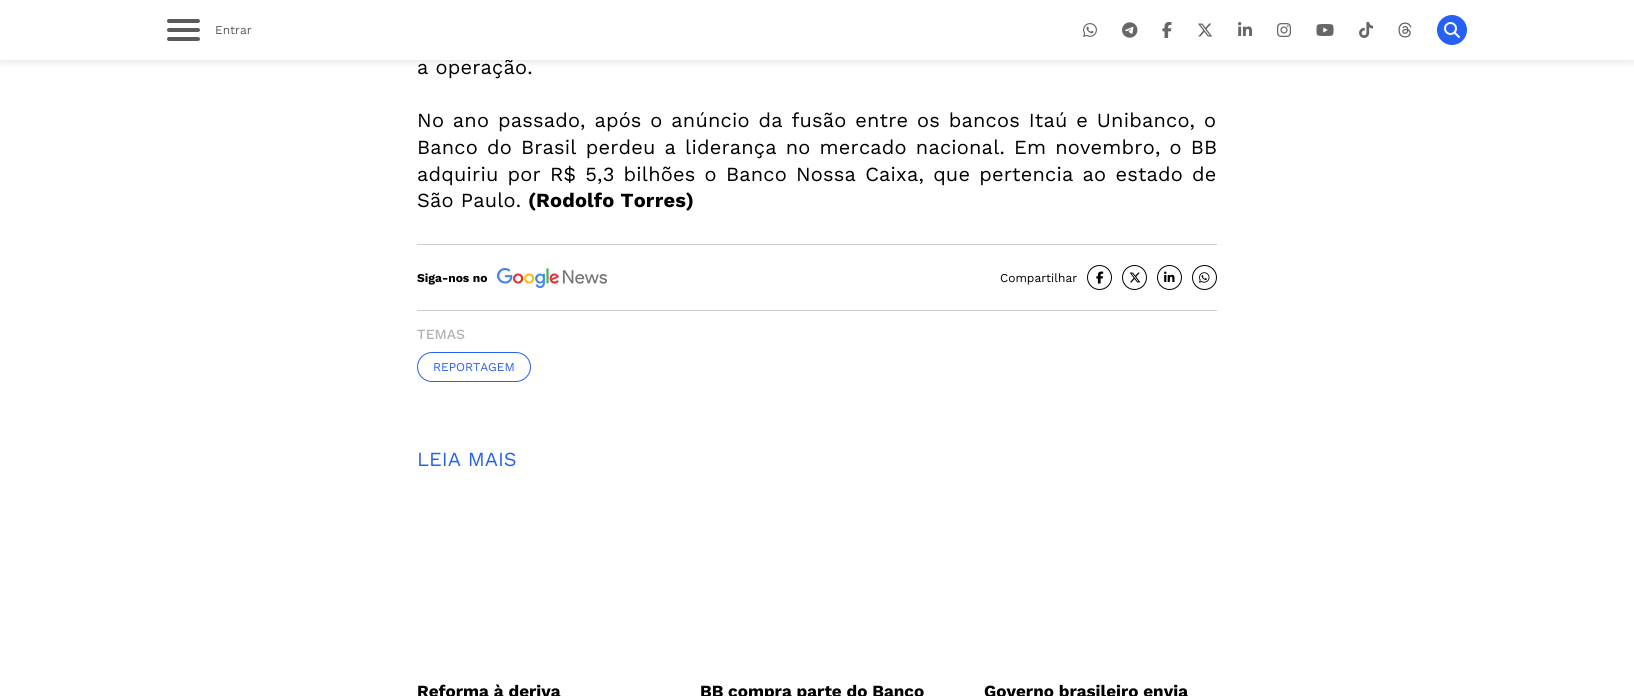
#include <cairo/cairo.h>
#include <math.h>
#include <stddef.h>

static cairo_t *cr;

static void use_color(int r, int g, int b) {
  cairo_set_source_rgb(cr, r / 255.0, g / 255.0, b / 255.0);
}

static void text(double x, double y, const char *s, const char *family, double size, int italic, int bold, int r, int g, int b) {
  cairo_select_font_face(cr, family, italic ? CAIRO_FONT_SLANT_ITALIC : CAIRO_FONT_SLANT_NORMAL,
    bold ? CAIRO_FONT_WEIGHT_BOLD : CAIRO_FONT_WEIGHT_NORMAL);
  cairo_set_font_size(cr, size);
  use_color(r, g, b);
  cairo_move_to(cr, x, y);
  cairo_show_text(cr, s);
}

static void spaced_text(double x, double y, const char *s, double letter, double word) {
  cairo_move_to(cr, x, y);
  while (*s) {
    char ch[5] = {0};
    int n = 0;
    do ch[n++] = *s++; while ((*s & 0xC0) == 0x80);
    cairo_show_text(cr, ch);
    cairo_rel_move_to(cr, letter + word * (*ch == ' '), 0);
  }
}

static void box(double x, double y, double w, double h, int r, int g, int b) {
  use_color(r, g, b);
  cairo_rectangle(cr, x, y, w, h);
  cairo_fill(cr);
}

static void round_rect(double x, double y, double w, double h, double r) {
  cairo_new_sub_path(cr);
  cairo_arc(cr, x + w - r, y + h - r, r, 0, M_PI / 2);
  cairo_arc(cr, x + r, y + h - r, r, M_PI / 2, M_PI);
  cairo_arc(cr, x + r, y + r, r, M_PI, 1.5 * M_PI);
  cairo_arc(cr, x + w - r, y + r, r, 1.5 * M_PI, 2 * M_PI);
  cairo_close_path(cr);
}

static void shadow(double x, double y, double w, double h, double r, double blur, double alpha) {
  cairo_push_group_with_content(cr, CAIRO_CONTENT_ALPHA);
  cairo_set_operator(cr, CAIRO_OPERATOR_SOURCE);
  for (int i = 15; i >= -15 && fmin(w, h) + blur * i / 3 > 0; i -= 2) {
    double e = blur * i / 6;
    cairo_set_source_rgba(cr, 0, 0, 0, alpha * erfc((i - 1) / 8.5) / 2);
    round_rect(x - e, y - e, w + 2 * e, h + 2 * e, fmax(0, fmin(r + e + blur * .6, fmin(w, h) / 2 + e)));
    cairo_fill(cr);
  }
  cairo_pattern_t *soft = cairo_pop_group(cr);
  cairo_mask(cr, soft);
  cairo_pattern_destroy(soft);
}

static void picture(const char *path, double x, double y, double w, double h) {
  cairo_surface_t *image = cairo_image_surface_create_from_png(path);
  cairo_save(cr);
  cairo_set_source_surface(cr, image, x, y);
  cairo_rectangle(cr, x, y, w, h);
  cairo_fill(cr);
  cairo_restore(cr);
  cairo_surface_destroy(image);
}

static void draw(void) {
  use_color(255, 255, 255);
  cairo_paint(cr);
  use_color(122, 122, 122);
  shadow(0, 3, 1634, 60, 0, 3, 0.16);
  box(417, 244, 800, 1, 204, 204, 204);
  box(417, 310, 800, 1, 204, 204, 204);
  picture("img_11.png", 497, 268, 110, 20);
  cairo_arc(cr, 1099.5, 277.5, 12, 0, 2 * M_PI);
  use_color(0, 0, 0);
  cairo_set_line_width(cr, 1);
  cairo_stroke(cr);
  picture("img_12.png", 1096, 271, 8, 13);
  cairo_arc(cr, 1134.5, 277.5, 12, 0, 2 * M_PI);
  cairo_stroke(cr);
  picture("img_13.png", 1129, 272, 12, 11);
  cairo_arc(cr, 1169.5, 277.5, 12, 0, 2 * M_PI);
  cairo_stroke(cr);
  picture("img_14.png", 1164, 271, 11, 11);
  cairo_arc(cr, 1204.5, 277.5, 12, 0, 2 * M_PI);
  cairo_stroke(cr);
  picture("img_15.png", 1199, 272, 11, 11);
  round_rect(417.5, 352.5, 113, 29, 14.5);
  use_color(38, 96, 245);
  cairo_stroke(cr);
  cairo_select_font_face(cr, "Work Sans", CAIRO_FONT_SLANT_NORMAL, CAIRO_FONT_WEIGHT_NORMAL);
  cairo_set_font_size(cr, 20);
  use_color(0, 0, 0);
  spaced_text(417, 74, "a operação.", 0.2, 0);
  box(0, 0, 1634, 60, 255, 255, 255);
  use_color(90, 90, 90);
  round_rect(167, 37, 33, 4, 2);
  cairo_fill(cr);
  round_rect(167, 28, 33, 4, 2);
  cairo_fill(cr);
  round_rect(167, 19, 33, 4, 2);
  cairo_fill(cr);
  use_color(38, 96, 245);
  cairo_arc(cr, 1452, 30, 15, 0, 2 * M_PI);
  cairo_fill(cr);
  picture("img_10.png", 1444, 22, 16, 16);
  picture("img_09.png", 1398, 22, 14, 16);
  picture("img_08.png", 1359, 22, 14, 16);
  picture("img_07.png", 1316, 24, 18, 12);
  picture("img_06.png", 1277, 23, 14, 14);
  picture("img_05.png", 1238, 22, 14, 14);
  picture("img_04.png", 1198, 23, 15, 14);
  picture("img_03.png", 1162, 22, 10, 16);
  picture("img_02.png", 1122, 22, 16, 16);
  picture("img_01.png", 1083, 23, 14, 14);
  text(215, 34, "Entrar", "Work Sans", 12, 0, 0, 90, 90, 90);
  cairo_set_font_size(cr, 20);
  use_color(0, 0, 0);
  spaced_text(417, 127, "No ano passado, após o anúncio da fusão entre os bancos Itaú e Unibanco, o", 0.2, 1.75);
  spaced_text(417, 154, "Banco do Brasil perdeu a liderança no mercado nacional. Em novembro, o BB", 0.2, 2);
  spaced_text(417, 181, "adquiriu por R$ 5,3 bilhões o Banco Nossa Caixa, que pertencia ao estado de", 0.2, 2.1);
  spaced_text(417, 207, "São Paulo.", 0.2, 0);
  cairo_select_font_face(cr, "Work Sans", CAIRO_FONT_SLANT_NORMAL, CAIRO_FONT_WEIGHT_BOLD);
  spaced_text(528, 207, "(Rodolfo Torres)", 0.2, 0);
  text(417, 282, "Siga-nos no", "Work Sans", 12, 0, 1, 0, 0, 0);
  text(1000, 282, "Compartilhar", "Work Sans", 12, 0, 0, 0, 0, 0);
  text(417, 339, "TEMAS", "Work Sans Medium", 14, 0, 0, 178, 178, 178);
  text(433, 371, "REPORTAGEM", "Work Sans", 12, 0, 0, 38, 96, 245);
  text(417, 466, "LEIA MAIS", "Work Sans", 20, 0, 0, 38, 96, 245);
  text(417, 697, "Reforma à deriva", "Work Sans", 17, 0, 1, 0, 0, 0);
  text(700, 697, "BB compra parte do Banco", "Work Sans", 17, 0, 1, 0, 0, 0);
  text(984, 697, "Governo brasileiro envia", "Work Sans", 17, 0, 1, 0, 0, 0);
}

int main(void) {
  cairo_surface_t *surface = cairo_image_surface_create(CAIRO_FORMAT_RGB24, 1634, 696);
  cr = cairo_create(surface);
  cairo_font_options_t *options = cairo_font_options_create();
  cairo_font_options_set_hint_metrics(options, CAIRO_HINT_METRICS_OFF);
  cairo_font_options_set_hint_style(options, CAIRO_HINT_STYLE_NONE);
  cairo_set_font_options(cr, options);
  cairo_set_miter_limit(cr, 4);
  draw();
  cairo_surface_write_to_png(surface, "out.png");
  cairo_font_options_destroy(options);
  cairo_destroy(cr);
  cairo_surface_destroy(surface);
  return 0;
}
